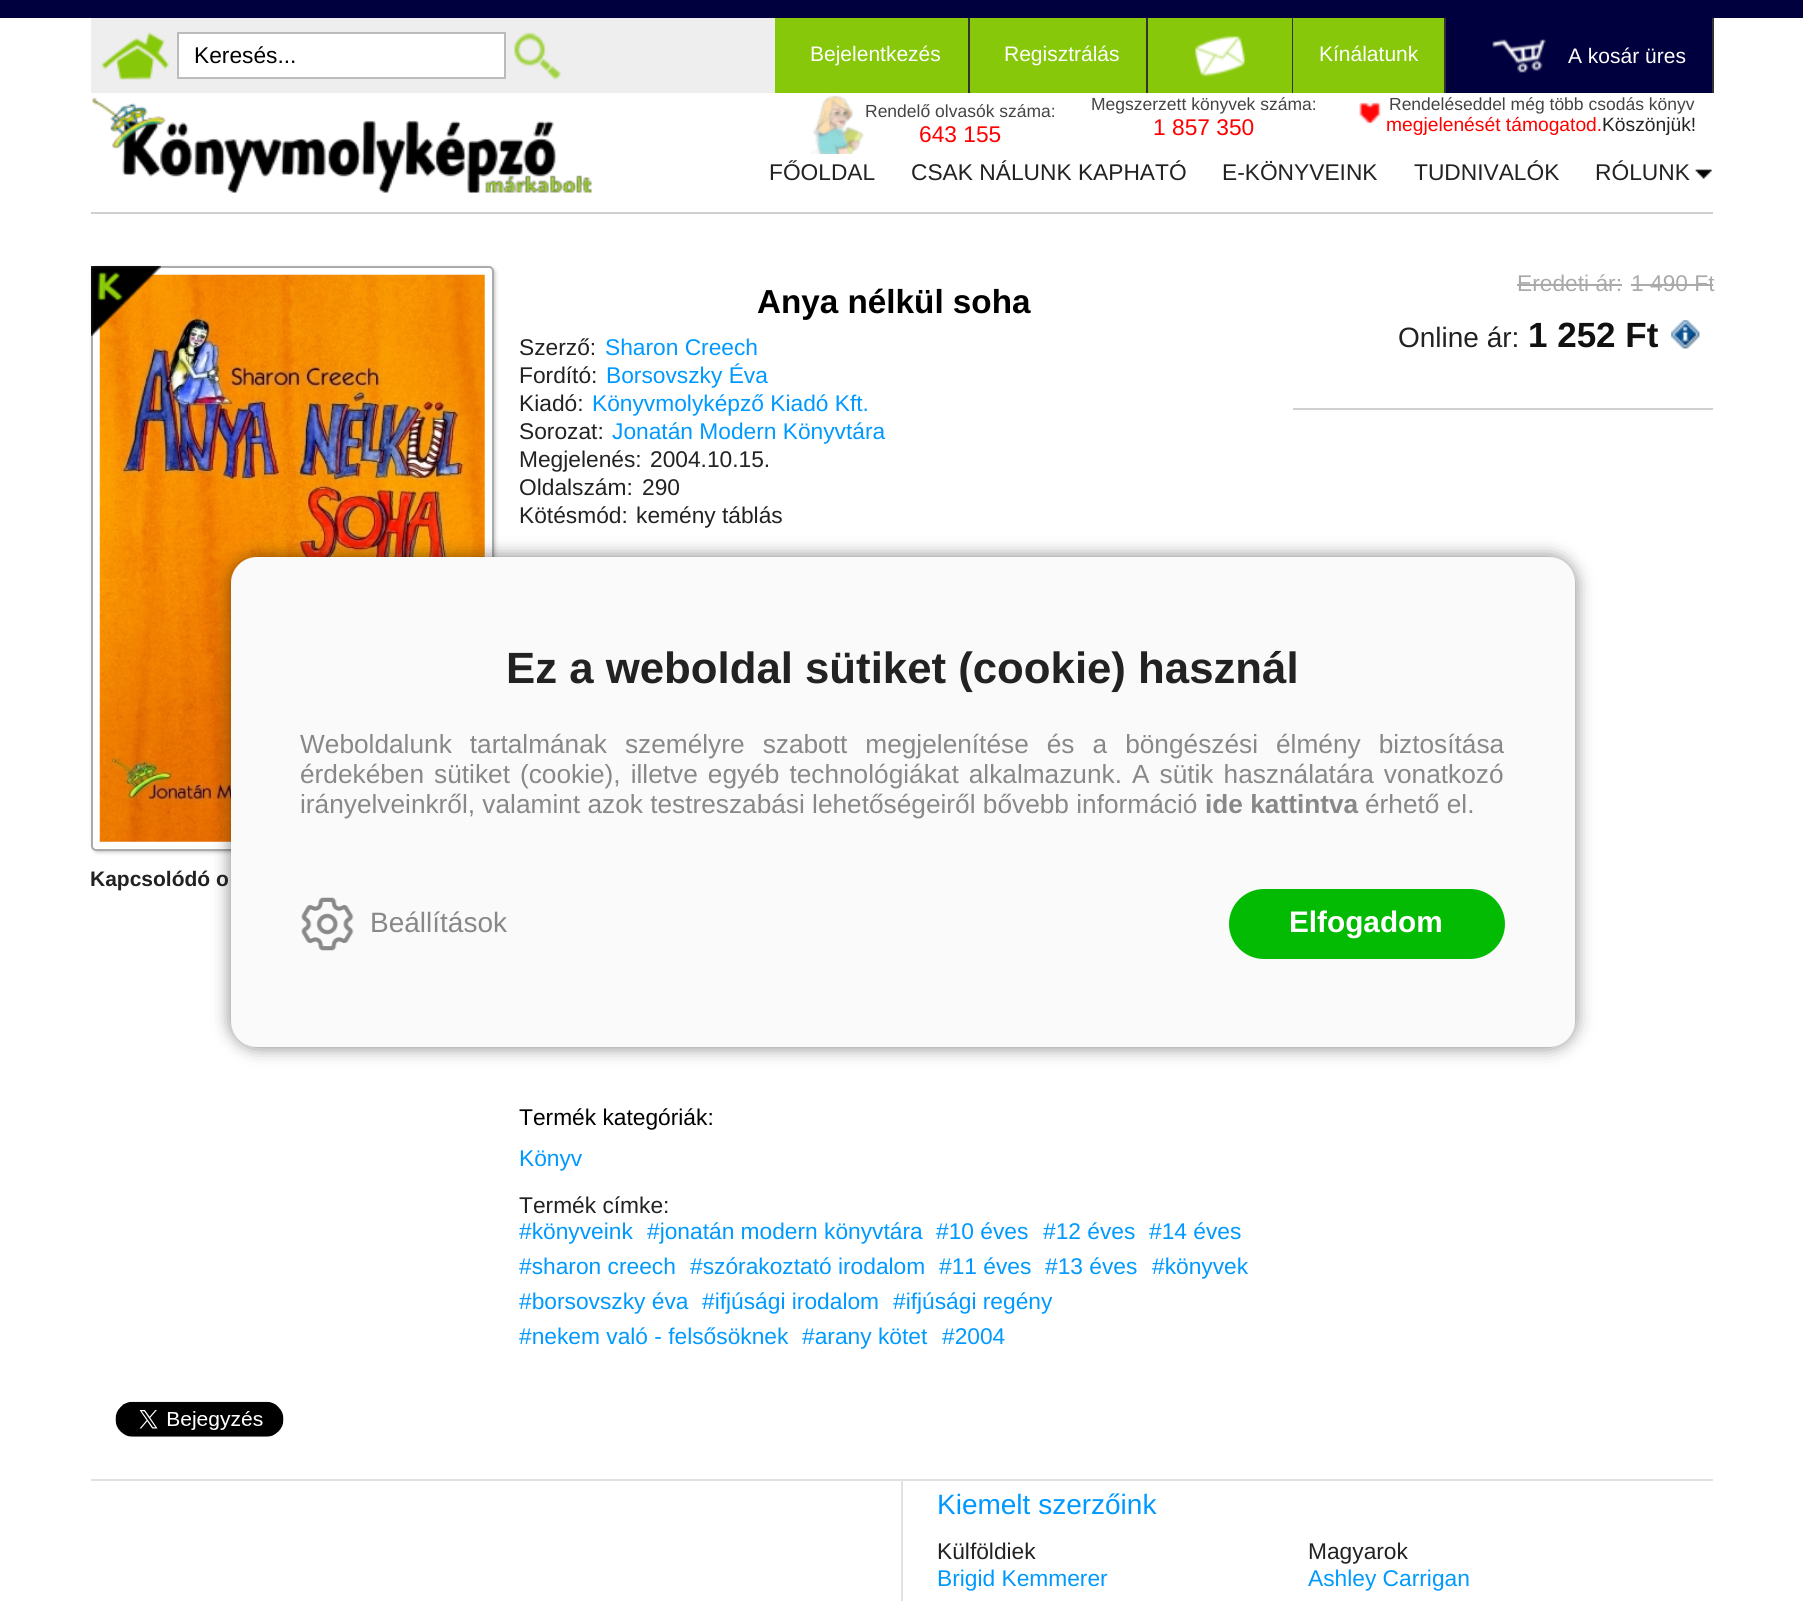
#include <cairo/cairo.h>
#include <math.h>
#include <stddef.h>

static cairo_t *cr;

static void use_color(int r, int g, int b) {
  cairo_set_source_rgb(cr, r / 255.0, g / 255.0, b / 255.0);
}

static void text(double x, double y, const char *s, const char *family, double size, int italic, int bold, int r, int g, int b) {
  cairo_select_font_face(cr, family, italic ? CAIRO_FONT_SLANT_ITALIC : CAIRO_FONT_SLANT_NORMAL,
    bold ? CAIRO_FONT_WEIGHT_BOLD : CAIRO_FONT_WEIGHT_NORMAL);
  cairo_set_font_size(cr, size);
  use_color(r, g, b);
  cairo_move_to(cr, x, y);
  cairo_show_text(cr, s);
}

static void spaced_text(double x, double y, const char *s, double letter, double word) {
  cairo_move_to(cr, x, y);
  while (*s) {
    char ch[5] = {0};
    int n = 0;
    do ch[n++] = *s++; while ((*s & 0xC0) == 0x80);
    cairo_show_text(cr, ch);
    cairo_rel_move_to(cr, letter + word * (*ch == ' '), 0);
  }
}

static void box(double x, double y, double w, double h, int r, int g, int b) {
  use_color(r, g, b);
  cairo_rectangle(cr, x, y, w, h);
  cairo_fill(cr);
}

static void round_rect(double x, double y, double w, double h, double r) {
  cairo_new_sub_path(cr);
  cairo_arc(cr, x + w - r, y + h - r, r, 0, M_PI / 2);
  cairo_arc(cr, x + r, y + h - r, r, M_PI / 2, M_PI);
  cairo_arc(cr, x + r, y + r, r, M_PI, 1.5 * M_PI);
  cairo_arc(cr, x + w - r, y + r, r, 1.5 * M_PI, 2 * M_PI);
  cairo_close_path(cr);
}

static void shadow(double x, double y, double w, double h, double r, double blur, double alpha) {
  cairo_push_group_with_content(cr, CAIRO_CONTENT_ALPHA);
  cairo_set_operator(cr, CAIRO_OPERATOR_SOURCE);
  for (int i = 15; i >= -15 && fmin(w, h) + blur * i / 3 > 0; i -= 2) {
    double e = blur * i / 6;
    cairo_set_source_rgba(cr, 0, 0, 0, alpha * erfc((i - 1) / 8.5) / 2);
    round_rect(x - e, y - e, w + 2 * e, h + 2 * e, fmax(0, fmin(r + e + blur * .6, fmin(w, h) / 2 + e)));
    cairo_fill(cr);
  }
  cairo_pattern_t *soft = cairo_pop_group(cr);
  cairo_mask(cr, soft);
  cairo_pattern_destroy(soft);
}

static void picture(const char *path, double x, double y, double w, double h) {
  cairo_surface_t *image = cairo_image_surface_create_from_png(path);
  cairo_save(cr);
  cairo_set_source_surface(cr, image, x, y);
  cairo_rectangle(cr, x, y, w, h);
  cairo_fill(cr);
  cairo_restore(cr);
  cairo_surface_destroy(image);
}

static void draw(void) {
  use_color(255, 255, 255);
  cairo_paint(cr);
  box(0, 0, 1803, 18, 0, 0, 62);
  box(91, 18, 684, 75, 238, 238, 238);
  picture("img_01.png", 101, 32, 68, 48);
  use_color(255, 255, 255);
  cairo_rectangle(cr, 178, 33, 327, 45);
  cairo_fill_preserve(cr);
  use_color(187, 187, 187);
  cairo_stroke(cr);
  picture("img_02.png", 514, 32, 47, 48);
  box(775, 18, 193, 75, 135, 200, 10);
  box(968, 18, 2, 75, 51, 51, 51);
  box(970, 18, 176, 75, 135, 200, 10);
  box(1146, 18, 2, 75, 51, 51, 51);
  box(1148, 18, 144, 75, 135, 200, 10);
  box(1292, 18, 1, 75, 51, 51, 51);
  picture("img_03.png", 1195, 35, 50, 42);
  box(1293, 18, 151, 75, 135, 200, 10);
  box(1444, 18, 2, 75, 51, 51, 51);
  box(1446, 18, 266, 75, 0, 0, 62);
  box(1712, 18, 2, 75, 51, 51, 51);
  picture("img_04.png", 1492, 39, 54, 34);
  box(91, 212, 1622, 2, 208, 208, 208);
  picture("img_05.png", 92, 98, 500, 95);
  picture("img_06.png", 810, 95, 54, 59);
  picture("img_07.png", 1359, 102, 22, 23);
  picture("img_08.png", 1695, 169, 17, 10);
  cairo_save(cr);
  cairo_set_fill_rule(cr, CAIRO_FILL_RULE_EVEN_ODD);
  cairo_new_path(cr);
  cairo_move_to(cr, 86, 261);
  cairo_line_to(cr, 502, 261);
  cairo_line_to(cr, 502, 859);
  cairo_line_to(cr, 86, 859);
  cairo_close_path(cr);
  cairo_move_to(cr, 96, 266);
  cairo_line_to(cr, 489, 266);
  cairo_curve_to(cr, 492, 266, 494, 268, 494, 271);
  cairo_line_to(cr, 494, 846);
  cairo_curve_to(cr, 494, 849, 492, 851, 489, 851);
  cairo_line_to(cr, 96, 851);
  cairo_curve_to(cr, 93, 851, 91, 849, 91, 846);
  cairo_line_to(cr, 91, 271);
  cairo_curve_to(cr, 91, 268, 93, 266, 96, 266);
  cairo_close_path(cr);
  cairo_clip(cr);
  use_color(189, 189, 189);
  shadow(93, 268, 402, 584, 5, 2, 1);
  cairo_restore(cr);
  round_rect(92, 267, 401, 583, 4);
  use_color(170, 170, 170);
  cairo_stroke(cr);
  picture("img_09.png", 99, 274, 386, 568);
  picture("img_10.png", 91, 266, 70, 70);
  picture("img_11.png", 115, 1401, 169, 36);
  box(1293, 408, 420, 2, 208, 208, 208);
  box(1517, 284, 105, 2, 170, 170, 170);
  box(1631, 284, 82, 2, 170, 170, 170);
  picture("img_12.png", 1671, 320, 29, 29);
  box(91, 1479, 1622, 2, 225, 225, 225);
  box(901, 1481, 2, 120, 225, 225, 225);
  use_color(0, 0, 0);
  shadow(231, 557, 1344, 490, 26, 9, 0.5);
  use_color(250, 250, 250);
  round_rect(231, 557, 1344, 490, 26);
  cairo_fill(cr);
  picture("img_13.png", 301, 897, 53, 54);
  use_color(2, 187, 2);
  round_rect(1229, 889, 276, 70, 35);
  cairo_fill(cr);
  text(194, 63, "Keresés...", "Liberation Sans", 22.75, 0, 0, 0, 0, 0);
  text(810, 61, "Bejelentkezés", "Liberation Sans", 21, 0, 0, 255, 255, 255);
  text(1004, 61, "Regisztrálás", "Liberation Sans", 21, 0, 0, 255, 255, 255);
  text(1319, 61, "Kínálatunk", "Liberation Sans", 21, 0, 0, 255, 255, 255);
  text(1568, 63, "A kosár üres", "Liberation Sans", 21, 0, 0, 255, 255, 255);
  text(865, 117, "Rendelő olvasók száma:", "Liberation Sans", 17.5, 0, 0, 68, 68, 68);
  text(919, 142, "643 155", "Liberation Sans", 22.75, 0, 0, 255, 0, 0);
  text(1091, 110, "Megszerzett könyvek száma:", "Liberation Sans", 17.5, 0, 0, 68, 68, 68);
  text(1153, 135, "1 857 350", "Liberation Sans", 22.75, 0, 0, 255, 0, 0);
  text(1389, 110, "Rendeléseddel még több csodás könyv", "Liberation Sans", 17.5, 0, 0, 68, 68, 68);
  text(1386, 131, "megjelenését támogatod.", "Liberation Sans", 19.25, 0, 0, 255, 0, 0);
  text(1602, 131, "Köszönjük!", "Liberation Sans", 19.25, 0, 0, 34, 34, 34);
  text(769, 180, "FŐOLDAL", "Liberation Sans", 22.75, 0, 0, 34, 34, 34);
  text(911, 180, "CSAK NÁLUNK KAPHATÓ", "Liberation Sans", 22.75, 0, 0, 34, 34, 34);
  text(1222, 180, "E-KÖNYVEINK", "Liberation Sans", 22.75, 0, 0, 34, 34, 34);
  text(1414, 180, "TUDNIVALÓK", "Liberation Sans", 22.75, 0, 0, 34, 34, 34);
  text(1595, 180, "RÓLUNK", "Liberation Sans", 22.75, 0, 0, 34, 34, 34);
  text(90, 886, "Kapcsolódó o", "Liberation Sans", 21, 0, 1, 34, 34, 34);
  text(757, 313, "Anya nélkül soha", "Liberation Sans", 33.25, 0, 1, 0, 0, 0);
  text(519, 355, "Szerző:", "Liberation Sans", 22.75, 0, 0, 34, 34, 34);
  text(605, 355, "Sharon Creech", "Liberation Sans", 22.75, 0, 0, 0, 153, 255);
  text(519, 383, "Fordító:", "Liberation Sans", 22.75, 0, 0, 34, 34, 34);
  text(606, 383, "Borsovszky Éva", "Liberation Sans", 22.75, 0, 0, 0, 153, 255);
  text(519, 411, "Kiadó:", "Liberation Sans", 22.75, 0, 0, 34, 34, 34);
  text(592, 411, "Könyvmolyképző Kiadó Kft.", "Liberation Sans", 22.75, 0, 0, 0, 153, 255);
  text(519, 439, "Sorozat:", "Liberation Sans", 22.75, 0, 0, 34, 34, 34);
  text(612, 439, "Jonatán Modern Könyvtára", "Liberation Sans", 22.75, 0, 0, 0, 153, 255);
  text(519, 467, "Megjelenés:", "Liberation Sans", 22.75, 0, 0, 34, 34, 34);
  text(650, 467, "2004.10.15.", "Liberation Sans", 22.75, 0, 0, 34, 34, 34);
  text(519, 495, "Oldalszám:", "Liberation Sans", 22.75, 0, 0, 34, 34, 34);
  text(642, 495, "290", "Liberation Sans", 22.75, 0, 0, 34, 34, 34);
  text(519, 523, "Kötésmód:", "Liberation Sans", 22.75, 0, 0, 34, 34, 34);
  text(636, 523, "kemény táblás", "Liberation Sans", 22.75, 0, 0, 34, 34, 34);
  text(519, 1125, "Termék kategóriák:", "Liberation Sans", 22.75, 0, 0, 0, 0, 0);
  text(519, 1166, "Könyv", "Liberation Sans", 22.75, 0, 0, 0, 153, 255);
  text(519, 1213, "Termék címke:", "Liberation Sans", 22.75, 0, 0, 34, 34, 34);
  text(519, 1239, "#könyveink", "Liberation Sans", 22.75, 0, 0, 0, 153, 255);
  text(647, 1239, "#jonatán modern könyvtára", "Liberation Sans", 22.75, 0, 0, 0, 153, 255);
  text(936, 1239, "#10 éves", "Liberation Sans", 22.75, 0, 0, 0, 153, 255);
  text(1043, 1239, "#12 éves", "Liberation Sans", 22.75, 0, 0, 0, 153, 255);
  text(1149, 1239, "#14 éves", "Liberation Sans", 22.75, 0, 0, 0, 153, 255);
  text(519, 1274, "#sharon creech", "Liberation Sans", 22.75, 0, 0, 0, 153, 255);
  text(690, 1274, "#szórakoztató irodalom", "Liberation Sans", 22.75, 0, 0, 0, 153, 255);
  text(939, 1274, "#11 éves", "Liberation Sans", 22.75, 0, 0, 0, 153, 255);
  text(1045, 1274, "#13 éves", "Liberation Sans", 22.75, 0, 0, 0, 153, 255);
  text(1152, 1274, "#könyvek", "Liberation Sans", 22.75, 0, 0, 0, 153, 255);
  text(519, 1309, "#borsovszky éva", "Liberation Sans", 22.75, 0, 0, 0, 153, 255);
  text(702, 1309, "#ifjúsági irodalom", "Liberation Sans", 22.75, 0, 0, 0, 153, 255);
  text(893, 1309, "#ifjúsági regény", "Liberation Sans", 22.75, 0, 0, 0, 153, 255);
  text(519, 1344, "#nekem való - felsősöknek", "Liberation Sans", 22.75, 0, 0, 0, 153, 255);
  text(802, 1344, "#arany kötet", "Liberation Sans", 22.75, 0, 0, 0, 153, 255);
  text(942, 1344, "#2004", "Liberation Sans", 22.75, 0, 0, 0, 153, 255);
  text(1517, 291, "Eredeti ár:", "Liberation Sans", 22.75, 0, 0, 170, 170, 170);
  text(1631, 291, "1 490 Ft", "Liberation Sans", 22.75, 0, 0, 170, 170, 170);
  text(1398, 347, "Online ár:", "Liberation Sans", 28, 0, 0, 34, 34, 34);
  text(1528, 347, "1 252 Ft", "Liberation Sans", 35, 0, 1, 17, 17, 17);
  text(937, 1514, "Kiemelt szerzőink", "Liberation Sans", 28, 0, 0, 0, 153, 255);
  text(937, 1559, "Külföldiek", "Liberation Sans", 22.75, 0, 0, 34, 34, 34);
  text(937, 1586, "Brigid Kemmerer", "Liberation Sans", 22.75, 0, 0, 0, 153, 255);
  text(1308, 1559, "Magyarok", "Liberation Sans", 22.75, 0, 0, 34, 34, 34);
  text(1308, 1586, "Ashley Carrigan", "Liberation Sans", 22.75, 0, 0, 0, 153, 255);
  text(506, 683, "Ez a weboldal sütiket (cookie) használ", "Liberation Sans", 43.75, 0, 1, 34, 34, 34);
  cairo_select_font_face(cr, "Liberation Sans", CAIRO_FONT_SLANT_NORMAL, CAIRO_FONT_WEIGHT_NORMAL);
  cairo_set_font_size(cr, 26.25);
  use_color(136, 136, 136);
  spaced_text(300, 753, "Weboldalunk tartalmának személyre szabott megjelenítése és a böngészési élmény biztosítása", 0, 10.75);
  spaced_text(300, 783, "érdekében sütiket (cookie), illetve egyéb technológiákat alkalmazunk. A sütik használatára vonatkozó", 0, 2.75);
  text(300, 813, "irányelveinkről, valamint azok testreszabási lehetőségeiről bővebb információ", "Liberation Sans", 26.25, 0, 0, 136, 136, 136);
  text(1205, 813, "ide kattintva", "Liberation Sans", 26.25, 0, 1, 136, 136, 136);
  text(1365, 813, "érhető el.", "Liberation Sans", 26.25, 0, 0, 136, 136, 136);
  text(370, 932, "Beállítások", "Liberation Sans", 28, 0, 0, 136, 136, 136);
  text(1289, 932, "Elfogadom", "Liberation Sans", 29.75, 0, 1, 255, 255, 255);
}

int main(void) {
  cairo_surface_t *surface = cairo_image_surface_create(CAIRO_FORMAT_RGB24, 1803, 1601);
  cr = cairo_create(surface);
  cairo_font_options_t *options = cairo_font_options_create();
  cairo_font_options_set_hint_metrics(options, CAIRO_HINT_METRICS_OFF);
  cairo_font_options_set_hint_style(options, CAIRO_HINT_STYLE_NONE);
  cairo_set_font_options(cr, options);
  cairo_set_miter_limit(cr, 4);
  draw();
  cairo_surface_write_to_png(surface, "out.png");
  cairo_font_options_destroy(options);
  cairo_destroy(cr);
  cairo_surface_destroy(surface);
  return 0;
}
